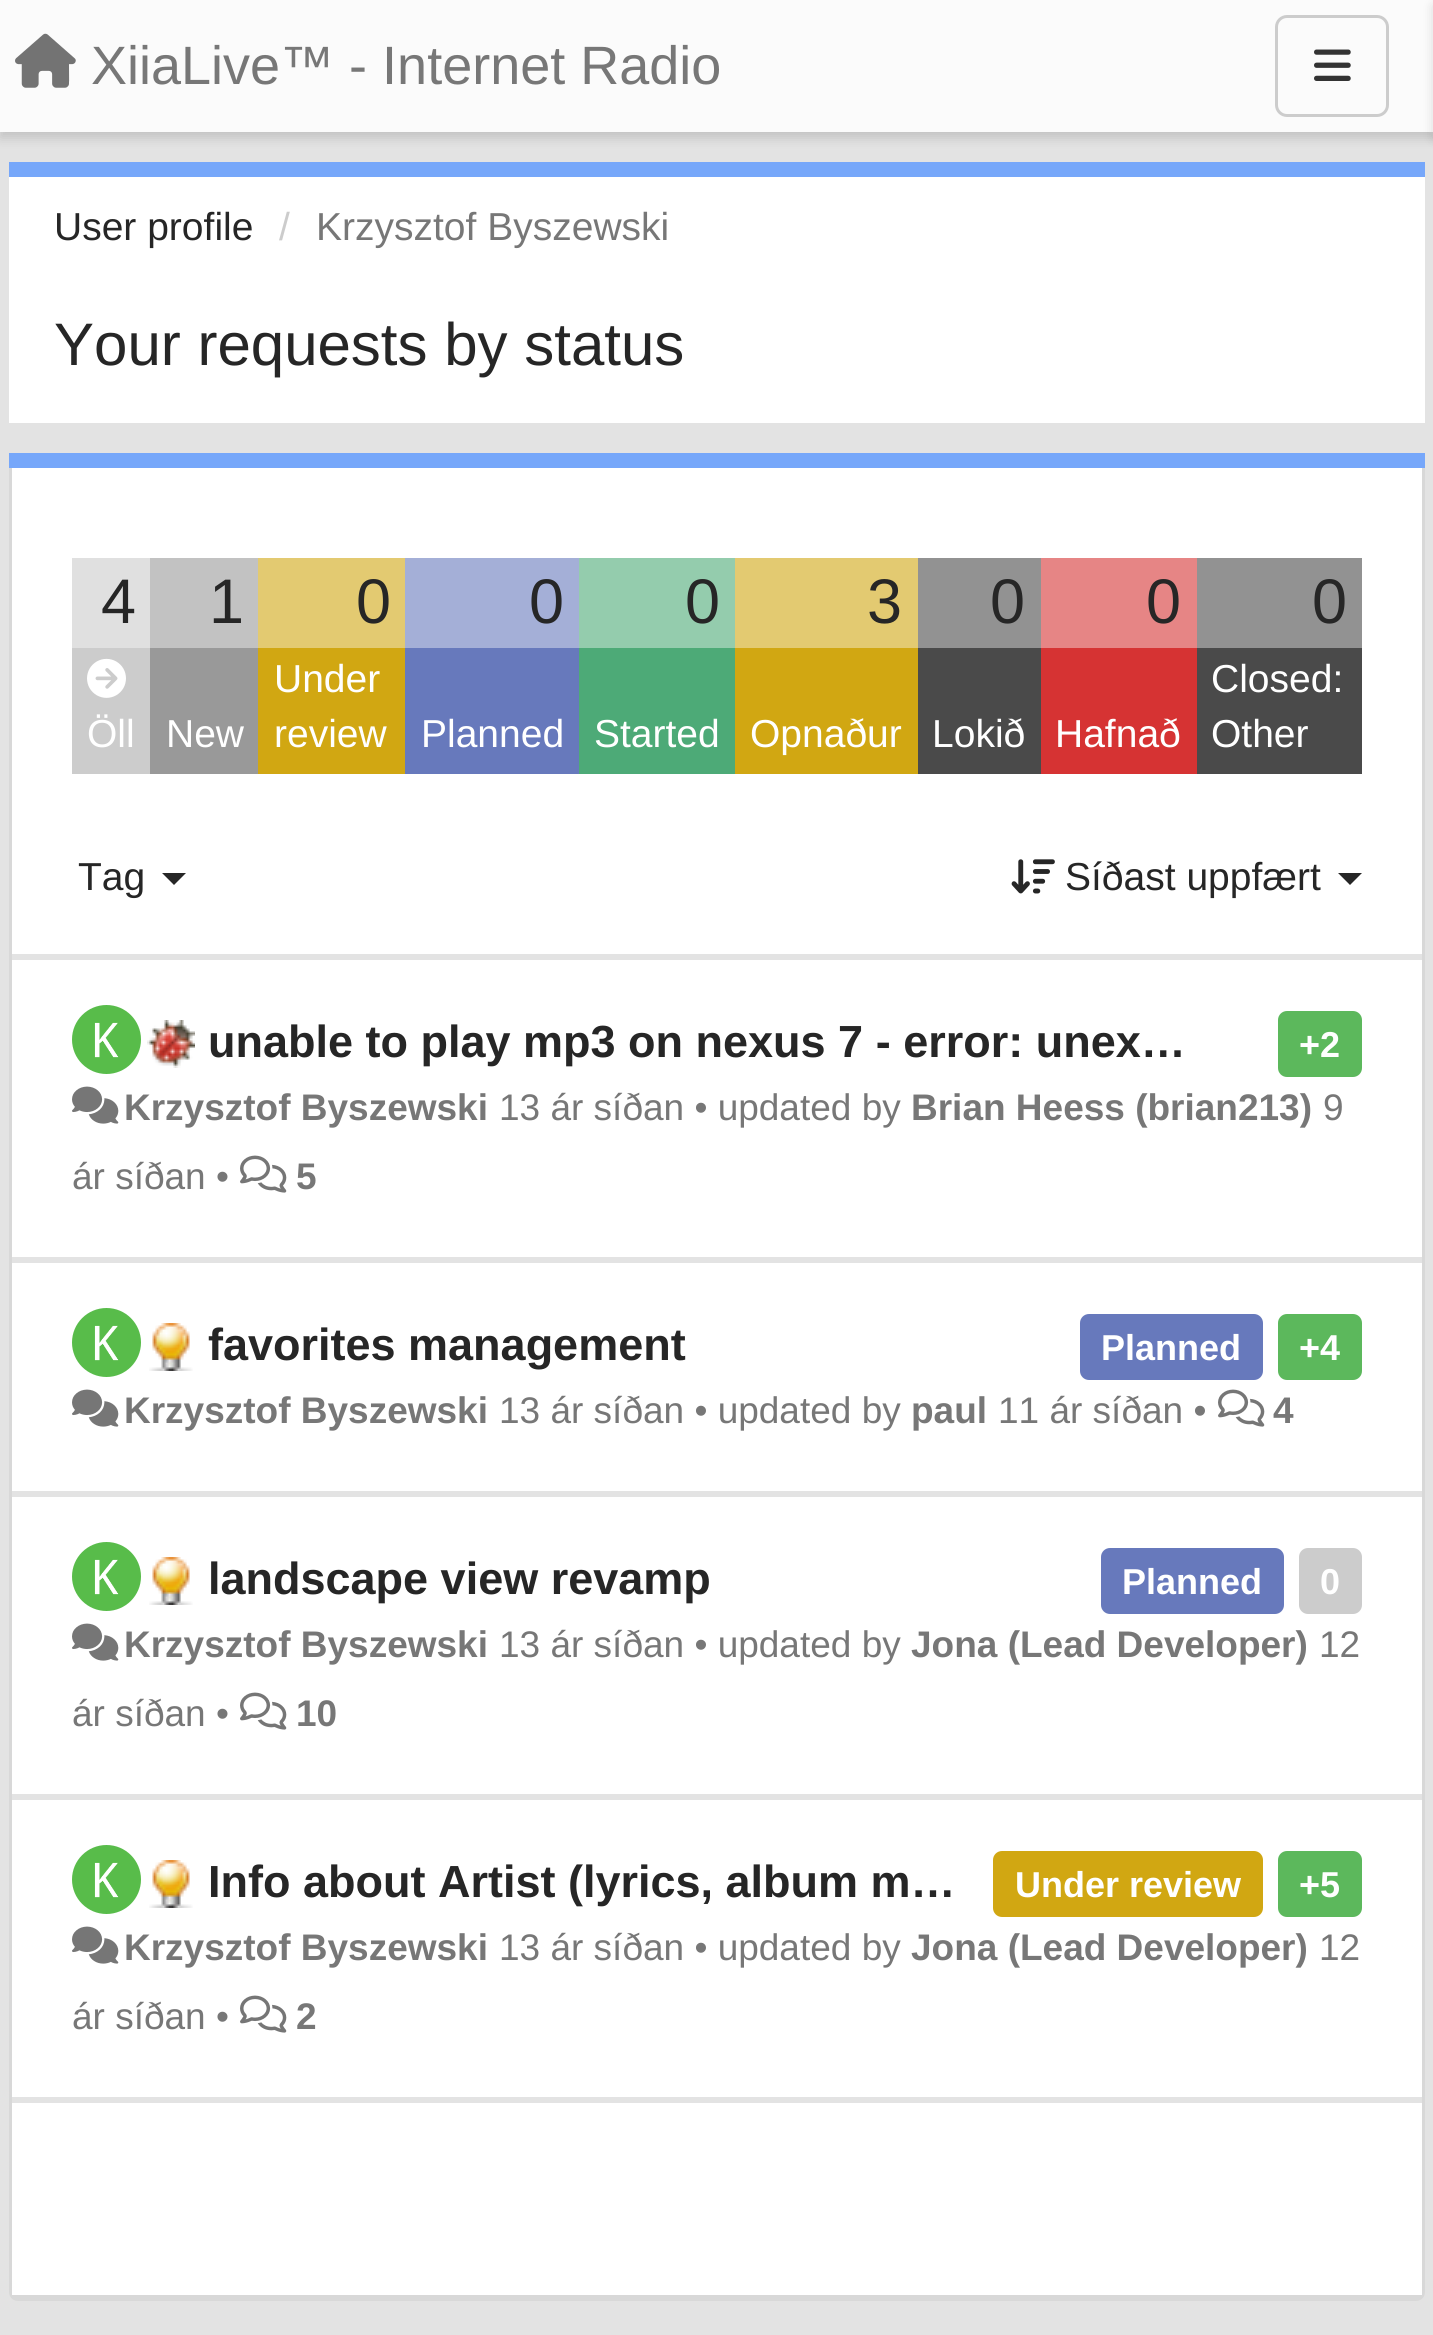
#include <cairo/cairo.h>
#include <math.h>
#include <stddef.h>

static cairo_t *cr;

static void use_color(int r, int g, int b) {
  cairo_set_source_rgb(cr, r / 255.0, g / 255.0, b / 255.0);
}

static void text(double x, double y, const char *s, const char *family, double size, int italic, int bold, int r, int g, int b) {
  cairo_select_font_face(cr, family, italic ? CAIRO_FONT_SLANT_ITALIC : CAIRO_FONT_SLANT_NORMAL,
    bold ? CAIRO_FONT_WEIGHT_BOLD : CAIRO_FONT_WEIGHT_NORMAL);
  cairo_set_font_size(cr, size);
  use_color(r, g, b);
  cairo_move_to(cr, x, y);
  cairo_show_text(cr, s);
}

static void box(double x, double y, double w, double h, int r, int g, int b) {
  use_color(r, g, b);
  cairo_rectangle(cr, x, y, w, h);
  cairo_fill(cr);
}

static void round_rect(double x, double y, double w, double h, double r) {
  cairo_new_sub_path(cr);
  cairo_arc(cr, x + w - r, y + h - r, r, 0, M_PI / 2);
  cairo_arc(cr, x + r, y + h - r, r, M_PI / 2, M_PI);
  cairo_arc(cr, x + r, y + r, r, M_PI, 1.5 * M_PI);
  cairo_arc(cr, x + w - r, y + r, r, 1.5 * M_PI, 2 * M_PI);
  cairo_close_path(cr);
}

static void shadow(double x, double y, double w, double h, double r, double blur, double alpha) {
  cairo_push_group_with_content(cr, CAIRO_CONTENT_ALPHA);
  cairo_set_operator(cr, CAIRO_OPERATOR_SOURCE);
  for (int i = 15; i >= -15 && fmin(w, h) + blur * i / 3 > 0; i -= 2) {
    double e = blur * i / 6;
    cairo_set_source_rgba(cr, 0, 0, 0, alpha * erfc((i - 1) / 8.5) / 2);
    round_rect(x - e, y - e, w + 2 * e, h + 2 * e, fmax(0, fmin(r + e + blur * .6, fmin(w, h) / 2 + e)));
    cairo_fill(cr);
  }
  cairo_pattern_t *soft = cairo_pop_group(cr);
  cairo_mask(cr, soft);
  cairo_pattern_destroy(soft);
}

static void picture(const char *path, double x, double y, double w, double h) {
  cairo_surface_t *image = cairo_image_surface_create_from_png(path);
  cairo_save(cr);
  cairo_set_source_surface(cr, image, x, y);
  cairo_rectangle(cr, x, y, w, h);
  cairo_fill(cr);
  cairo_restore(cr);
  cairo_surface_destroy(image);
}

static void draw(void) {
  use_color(227, 227, 227);
  cairo_paint(cr);
  use_color(0, 0, 0);
  shadow(0, 6, 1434, 132, 0, 6, 0.15);
  box(0, 0, 1433, 132, 251, 251, 251);
  picture("img_01.png", 15, 33, 61, 55);
  round_rect(1276.5, 16.5, 111, 99, 10.5);
  use_color(204, 204, 204);
  cairo_set_line_width(cr, 3);
  cairo_stroke(cr);
  picture("img_02.png", 1314, 49, 37, 32);
  use_color(0, 0, 0);
  shadow(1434, 6, 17, 132, 0, 6, 0.15);
  box(9, 177, 1416, 246, 255, 255, 255);
  box(9, 162, 1416, 15, 118, 167, 250);
  box(9, 453, 1416, 15, 118, 167, 250);
  use_color(216, 216, 216);
  cairo_set_fill_rule(cr, CAIRO_FILL_RULE_EVEN_ODD);
  cairo_new_path(cr);
  cairo_move_to(cr, 9, 468);
  cairo_line_to(cr, 1425, 468);
  cairo_line_to(cr, 1425, 2292);
  cairo_curve_to(cr, 1425, 2297, 1421, 2301, 1416, 2301);
  cairo_line_to(cr, 18, 2301);
  cairo_curve_to(cr, 13, 2301, 9, 2297, 9, 2292);
  cairo_close_path(cr);
  cairo_move_to(cr, 12, 468);
  cairo_line_to(cr, 1422, 468);
  cairo_line_to(cr, 1422, 2292);
  cairo_curve_to(cr, 1422, 2294, 1419, 2295, 1416, 2295);
  cairo_line_to(cr, 18, 2295);
  cairo_curve_to(cr, 15, 2295, 12, 2294, 12, 2292);
  cairo_close_path(cr);
  cairo_fill(cr);
  box(12, 468, 1410, 486, 255, 255, 255);
  box(72, 558, 78, 90, 224, 224, 224);
  box(150, 558, 108, 90, 194, 194, 194);
  box(258, 558, 147, 90, 227, 202, 113);
  box(405, 558, 174, 90, 164, 175, 215);
  box(579, 558, 156, 90, 148, 204, 173);
  box(735, 558, 183, 90, 227, 202, 113);
  box(918, 558, 123, 90, 146, 146, 146);
  box(1041, 558, 156, 90, 230, 133, 133);
  box(1197, 558, 165, 90, 146, 146, 146);
  box(72, 648, 78, 126, 204, 204, 204);
  picture("img_03.png", 87, 658, 39, 40);
  box(150, 648, 108, 126, 153, 153, 153);
  box(258, 648, 147, 126, 209, 167, 18);
  box(405, 648, 174, 126, 103, 121, 188);
  box(579, 648, 156, 126, 77, 170, 119);
  box(735, 648, 183, 126, 209, 167, 18);
  box(918, 648, 123, 126, 74, 74, 74);
  box(1041, 648, 156, 126, 214, 51, 51);
  box(1197, 648, 165, 126, 74, 74, 74);
  use_color(38, 38, 38);
  cairo_set_fill_rule(cr, CAIRO_FILL_RULE_WINDING);
  cairo_new_path(cr);
  cairo_move_to(cr, 162, 873);
  cairo_line_to(cr, 186, 873);
  cairo_line_to(cr, 174, 885);
  cairo_close_path(cr);
  cairo_fill(cr);
  picture("img_04.png", 1011, 859, 44, 35);
  cairo_new_path(cr);
  cairo_move_to(cr, 1338, 873);
  cairo_line_to(cr, 1362, 873);
  cairo_line_to(cr, 1350, 885);
  cairo_close_path(cr);
  cairo_fill(cr);
  box(12, 960, 1410, 297, 255, 255, 255);
  use_color(88, 188, 74);
  cairo_arc(cr, 106.5, 1039.5, 34.5, 0, 2 * M_PI);
  cairo_fill(cr);
  picture("img_05.png", 94, 1022, 25, 36);
  picture("img_06.png", 147, 1020, 48, 48);
  use_color(92, 184, 92);
  round_rect(1278, 1011, 84, 66, 9);
  cairo_fill(cr);
  picture("img_07.png", 72, 1086, 47, 38);
  picture("img_08.png", 240, 1155, 47, 38);
  box(12, 1263, 1410, 228, 255, 255, 255);
  use_color(88, 188, 74);
  cairo_arc(cr, 106.5, 1342.5, 34.5, 0, 2 * M_PI);
  cairo_fill(cr);
  picture("img_05.png", 94, 1325, 25, 36);
  picture("img_09.png", 149, 1323, 44, 48);
  use_color(103, 121, 188);
  round_rect(1080, 1314, 183, 66, 9);
  cairo_fill(cr);
  use_color(92, 184, 92);
  round_rect(1278, 1314, 84, 66, 9);
  cairo_fill(cr);
  picture("img_07.png", 72, 1389, 47, 38);
  picture("img_08.png", 1218, 1389, 47, 38);
  box(12, 1497, 1410, 297, 255, 255, 255);
  use_color(88, 188, 74);
  cairo_arc(cr, 106.5, 1576.5, 34.5, 0, 2 * M_PI);
  cairo_fill(cr);
  picture("img_05.png", 94, 1559, 25, 36);
  picture("img_09.png", 149, 1557, 44, 48);
  use_color(103, 121, 188);
  round_rect(1101, 1548, 183, 66, 9);
  cairo_fill(cr);
  use_color(204, 204, 204);
  round_rect(1299, 1548, 63, 66, 9);
  cairo_fill(cr);
  picture("img_07.png", 72, 1623, 47, 38);
  picture("img_08.png", 240, 1692, 47, 38);
  box(12, 1800, 1410, 297, 255, 255, 255);
  use_color(88, 188, 74);
  cairo_arc(cr, 106.5, 1879.5, 34.5, 0, 2 * M_PI);
  cairo_fill(cr);
  picture("img_05.png", 94, 1862, 25, 36);
  picture("img_09.png", 149, 1860, 44, 48);
  use_color(209, 167, 18);
  round_rect(993, 1851, 270, 66, 9);
  cairo_fill(cr);
  use_color(92, 184, 92);
  round_rect(1278, 1851, 84, 66, 9);
  cairo_fill(cr);
  picture("img_07.png", 72, 1926, 47, 38);
  picture("img_08.png", 240, 1995, 47, 38);
  box(12, 2103, 1410, 192, 255, 255, 255);
  text(91, 84, "XiiaLive™ - Internet Radio", "Liberation Sans", 54, 0, 0, 119, 119, 119);
  text(54, 240, "User profile", "Liberation Sans", 39, 0, 0, 38, 38, 38);
  text(279, 240, "/", "Liberation Sans", 39, 0, 0, 204, 204, 204);
  text(316, 240, "Krzysztof Byszewski", "Liberation Sans", 39, 0, 0, 119, 119, 119);
  text(54, 365, "Your requests by status", "Liberation Sans", 60, 0, 0, 38, 38, 38);
  text(101, 623, "4", "Liberation Sans", 63, 0, 0, 38, 38, 38);
  text(209, 623, "1", "Liberation Sans", 63, 0, 0, 38, 38, 38);
  text(356, 623, "0", "Liberation Sans", 63, 0, 0, 38, 38, 38);
  text(529, 623, "0", "Liberation Sans", 63, 0, 0, 38, 38, 38);
  text(685, 623, "0", "Liberation Sans", 63, 0, 0, 38, 38, 38);
  text(867, 623, "3", "Liberation Sans", 63, 0, 0, 38, 38, 38);
  text(990, 623, "0", "Liberation Sans", 63, 0, 0, 38, 38, 38);
  text(1146, 623, "0", "Liberation Sans", 63, 0, 0, 38, 38, 38);
  text(1312, 623, "0", "Liberation Sans", 63, 0, 0, 38, 38, 38);
  text(87, 747, "Öll", "Liberation Sans", 39, 0, 0, 255, 255, 255);
  text(166, 747, "New", "Liberation Sans", 39, 0, 0, 255, 255, 255);
  text(274, 692, "Under", "Liberation Sans", 39, 0, 0, 255, 255, 255);
  text(274, 747, "review", "Liberation Sans", 39, 0, 0, 255, 255, 255);
  text(421, 747, "Planned", "Liberation Sans", 39, 0, 0, 255, 255, 255);
  text(594, 747, "Started", "Liberation Sans", 39, 0, 0, 255, 255, 255);
  text(750, 747, "Opnaður", "Liberation Sans", 39, 0, 0, 255, 255, 255);
  text(932, 747, "Lokið", "Liberation Sans", 39, 0, 0, 255, 255, 255);
  text(1055, 747, "Hafnað", "Liberation Sans", 39, 0, 0, 255, 255, 255);
  text(1211, 692, "Closed:", "Liberation Sans", 39, 0, 0, 255, 255, 255);
  text(1211, 747, "Other", "Liberation Sans", 39, 0, 0, 255, 255, 255);
  text(78, 890, "Tag", "Liberation Sans", 39, 0, 0, 38, 38, 38);
  text(1065, 890, "Síðast uppfært", "Liberation Sans", 39, 0, 0, 38, 38, 38);
  text(208, 1057, "unable to play mp3 on nexus 7 - error: unex…", "Liberation Sans", 45, 0, 1, 38, 38, 38);
  text(1299, 1057, "+2", "Liberation Sans", 36, 0, 1, 255, 255, 255);
  text(124, 1120, "Krzysztof Byszewski", "Liberation Sans", 37, 0, 1, 119, 119, 119);
  text(499, 1120, "13 ár síðan • updated by", "Liberation Sans", 37, 0, 0, 119, 119, 119);
  text(911, 1120, "Brian Heess (brian213)", "Liberation Sans", 37, 0, 1, 119, 119, 119);
  text(1323, 1120, "9", "Liberation Sans", 37, 0, 0, 119, 119, 119);
  text(72, 1189, "ár síðan •", "Liberation Sans", 37, 0, 0, 119, 119, 119);
  text(296, 1189, "5", "Liberation Sans", 37, 0, 1, 119, 119, 119);
  text(208, 1360, "favorites management", "Liberation Sans", 45, 0, 1, 38, 38, 38);
  text(1101, 1360, "Planned", "Liberation Sans", 36, 0, 1, 255, 255, 255);
  text(1299, 1360, "+4", "Liberation Sans", 36, 0, 1, 255, 255, 255);
  text(124, 1423, "Krzysztof Byszewski", "Liberation Sans", 37, 0, 1, 119, 119, 119);
  text(499, 1423, "13 ár síðan • updated by", "Liberation Sans", 37, 0, 0, 119, 119, 119);
  text(911, 1423, "paul", "Liberation Sans", 37, 0, 1, 119, 119, 119);
  text(998, 1423, "11 ár síðan •", "Liberation Sans", 37, 0, 0, 119, 119, 119);
  text(1273, 1423, "4", "Liberation Sans", 37, 0, 1, 119, 119, 119);
  text(208, 1594, "landscape view revamp", "Liberation Sans", 45, 0, 1, 38, 38, 38);
  text(1122, 1594, "Planned", "Liberation Sans", 36, 0, 1, 255, 255, 255);
  text(1320, 1594, "0", "Liberation Sans", 36, 0, 1, 255, 255, 255);
  text(124, 1657, "Krzysztof Byszewski", "Liberation Sans", 37, 0, 1, 119, 119, 119);
  text(499, 1657, "13 ár síðan • updated by", "Liberation Sans", 37, 0, 0, 119, 119, 119);
  text(911, 1657, "Jona (Lead Developer)", "Liberation Sans", 37, 0, 1, 119, 119, 119);
  text(1319, 1657, "12", "Liberation Sans", 37, 0, 0, 119, 119, 119);
  text(72, 1726, "ár síðan •", "Liberation Sans", 37, 0, 0, 119, 119, 119);
  text(296, 1726, "10", "Liberation Sans", 37, 0, 1, 119, 119, 119);
  text(208, 1897, "Info about Artist (lyrics, album m…", "Liberation Sans", 45, 0, 1, 38, 38, 38);
  text(1015, 1897, "Under review", "Liberation Sans", 36, 0, 1, 255, 255, 255);
  text(1299, 1897, "+5", "Liberation Sans", 36, 0, 1, 255, 255, 255);
  text(124, 1960, "Krzysztof Byszewski", "Liberation Sans", 37, 0, 1, 119, 119, 119);
  text(499, 1960, "13 ár síðan • updated by", "Liberation Sans", 37, 0, 0, 119, 119, 119);
  text(911, 1960, "Jona (Lead Developer)", "Liberation Sans", 37, 0, 1, 119, 119, 119);
  text(1319, 1960, "12", "Liberation Sans", 37, 0, 0, 119, 119, 119);
  text(72, 2029, "ár síðan •", "Liberation Sans", 37, 0, 0, 119, 119, 119);
  text(296, 2029, "2", "Liberation Sans", 37, 0, 1, 119, 119, 119);
}

int main(void) {
  cairo_surface_t *surface = cairo_image_surface_create(CAIRO_FORMAT_RGB24, 1433, 2335);
  cr = cairo_create(surface);
  cairo_font_options_t *options = cairo_font_options_create();
  cairo_font_options_set_hint_metrics(options, CAIRO_HINT_METRICS_OFF);
  cairo_font_options_set_hint_style(options, CAIRO_HINT_STYLE_NONE);
  cairo_set_font_options(cr, options);
  cairo_set_miter_limit(cr, 4);
  draw();
  cairo_surface_write_to_png(surface, "out.png");
  cairo_font_options_destroy(options);
  cairo_destroy(cr);
  cairo_surface_destroy(surface);
  return 0;
}
